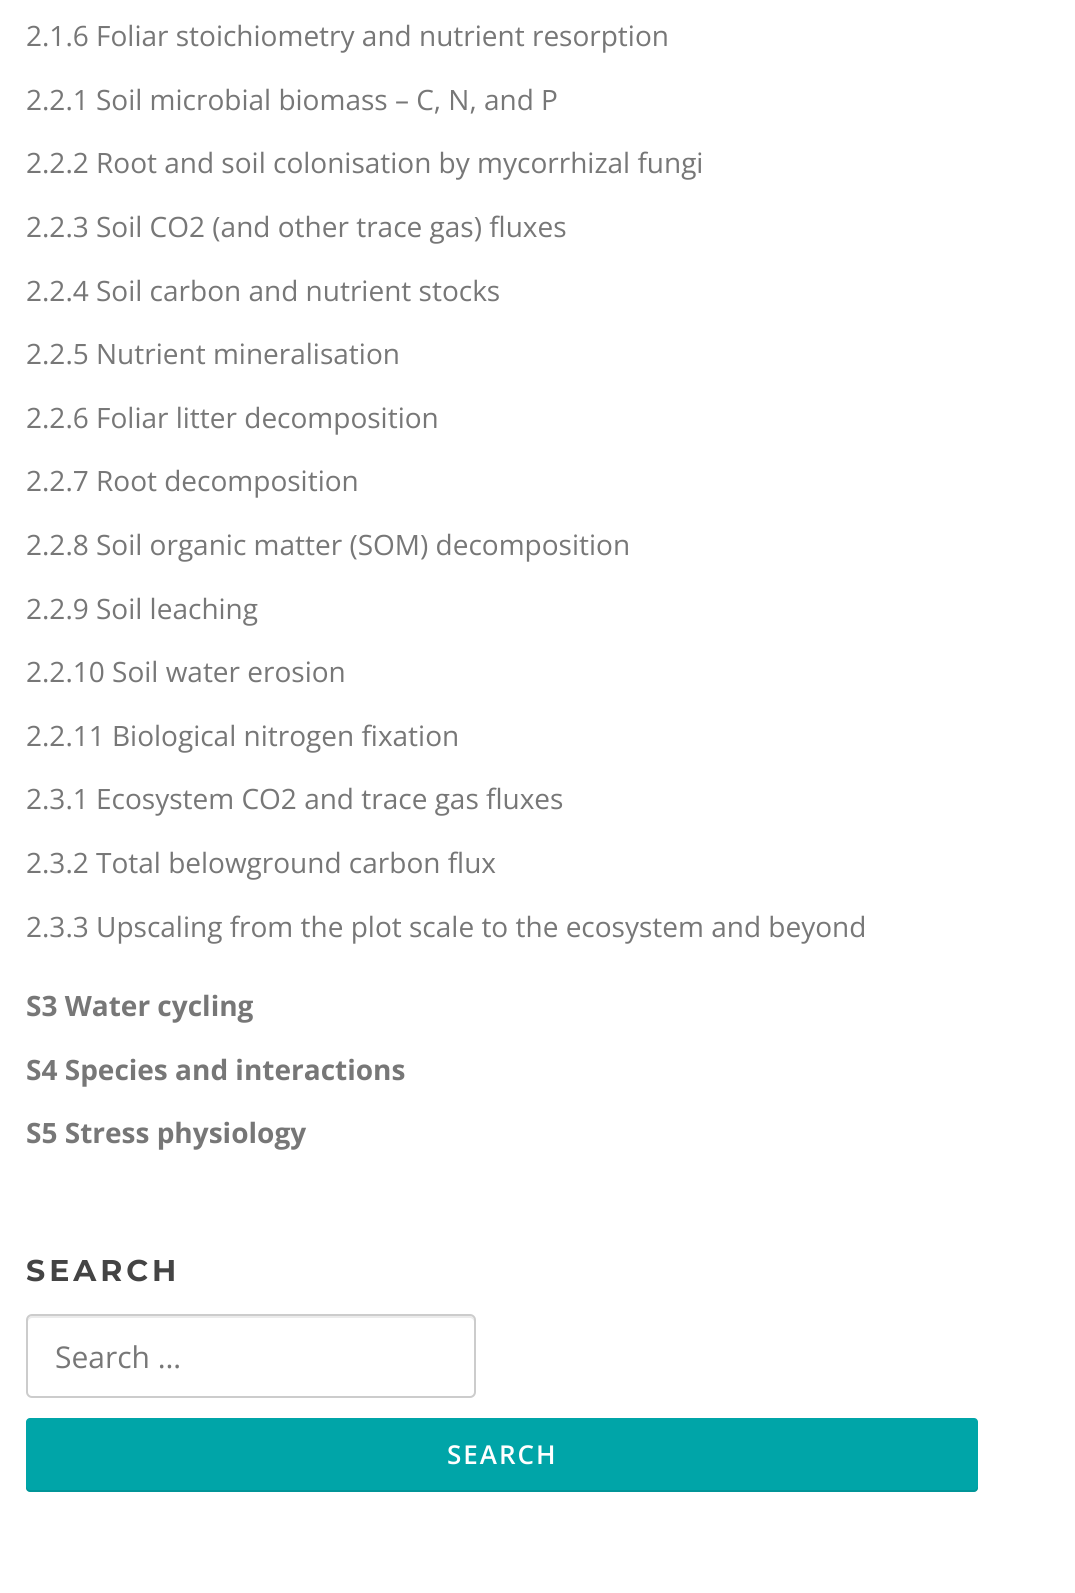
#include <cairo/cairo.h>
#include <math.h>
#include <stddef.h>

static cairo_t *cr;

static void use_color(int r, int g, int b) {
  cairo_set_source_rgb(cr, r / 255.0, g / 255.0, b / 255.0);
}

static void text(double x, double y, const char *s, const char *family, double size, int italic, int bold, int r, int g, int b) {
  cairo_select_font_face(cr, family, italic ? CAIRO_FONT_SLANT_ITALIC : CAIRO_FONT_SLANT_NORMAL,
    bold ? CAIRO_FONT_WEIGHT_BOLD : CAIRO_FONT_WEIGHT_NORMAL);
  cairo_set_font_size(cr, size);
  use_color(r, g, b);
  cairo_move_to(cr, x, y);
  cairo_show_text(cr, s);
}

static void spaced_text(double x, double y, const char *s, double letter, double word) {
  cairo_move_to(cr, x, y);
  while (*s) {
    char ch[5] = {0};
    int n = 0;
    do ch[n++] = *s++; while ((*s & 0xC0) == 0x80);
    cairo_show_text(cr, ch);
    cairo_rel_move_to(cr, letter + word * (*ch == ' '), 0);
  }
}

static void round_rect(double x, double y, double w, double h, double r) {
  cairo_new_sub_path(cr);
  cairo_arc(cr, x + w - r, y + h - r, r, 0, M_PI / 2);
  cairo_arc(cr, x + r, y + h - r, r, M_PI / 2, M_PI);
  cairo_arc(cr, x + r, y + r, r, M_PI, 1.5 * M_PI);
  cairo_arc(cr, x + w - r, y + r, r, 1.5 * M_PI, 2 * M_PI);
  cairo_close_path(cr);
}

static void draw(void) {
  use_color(255, 255, 255);
  cairo_paint(cr);
  use_color(235, 235, 235);
  cairo_new_path(cr);
  cairo_move_to(cr, 32, 1318);
  cairo_line_to(cr, 470, 1318);
  cairo_curve_to(cr, 472, 1318, 474, 1320, 474, 1322);
  cairo_line_to(cr, 474, 1320);
  cairo_curve_to(cr, 474, 1318, 472, 1316, 470, 1316);
  cairo_line_to(cr, 32, 1316);
  cairo_curve_to(cr, 30, 1316, 28, 1318, 28, 1320);
  cairo_line_to(cr, 28, 1322);
  cairo_curve_to(cr, 28, 1320, 30, 1318, 32, 1318);
  cairo_close_path(cr);
  cairo_fill(cr);
  round_rect(27, 1315, 448, 82, 5);
  use_color(204, 204, 204);
  cairo_stroke(cr);
  use_color(0, 165, 168);
  round_rect(26, 1418, 952, 74, 4);
  cairo_fill(cr);
  cairo_set_source_rgba(cr, 0, 0, 0, 0.1);
  cairo_new_path(cr);
  cairo_move_to(cr, 26, 1486);
  cairo_line_to(cr, 26, 1488);
  cairo_curve_to(cr, 26, 1490, 28, 1492, 30, 1492);
  cairo_line_to(cr, 974, 1492);
  cairo_curve_to(cr, 976, 1492, 978, 1490, 978, 1488);
  cairo_line_to(cr, 978, 1486);
  cairo_curve_to(cr, 978, 1488, 976, 1490, 974, 1490);
  cairo_line_to(cr, 30, 1490);
  cairo_curve_to(cr, 28, 1490, 26, 1488, 26, 1486);
  cairo_close_path(cr);
  cairo_fill(cr);
  text(26, 46, "2.1.6 Foliar stoichiometry and nutrient resorption", "Open Sans", 28, 0, 0, 119, 119, 119);
  text(26, 110, "2.2.1 Soil microbial biomass – C, N, and P", "Open Sans", 28, 0, 0, 119, 119, 119);
  text(26, 173, "2.2.2 Root and soil colonisation by mycorrhizal fungi", "Open Sans", 28, 0, 0, 119, 119, 119);
  text(26, 237, "2.2.3 Soil CO2 (and other trace gas) fluxes", "Open Sans", 28, 0, 0, 119, 119, 119);
  text(26, 301, "2.2.4 Soil carbon and nutrient stocks", "Open Sans", 28, 0, 0, 119, 119, 119);
  text(26, 364, "2.2.5 Nutrient mineralisation", "Open Sans", 28, 0, 0, 119, 119, 119);
  text(26, 428, "2.2.6 Foliar litter decomposition", "Open Sans", 28, 0, 0, 119, 119, 119);
  text(26, 491, "2.2.7 Root decomposition", "Open Sans", 28, 0, 0, 119, 119, 119);
  text(26, 555, "2.2.8 Soil organic matter (SOM) decomposition", "Open Sans", 28, 0, 0, 119, 119, 119);
  text(26, 619, "2.2.9 Soil leaching", "Open Sans", 28, 0, 0, 119, 119, 119);
  text(26, 682, "2.2.10 Soil water erosion", "Open Sans", 28, 0, 0, 119, 119, 119);
  text(26, 746, "2.2.11 Biological nitrogen fixation", "Open Sans", 28, 0, 0, 119, 119, 119);
  text(26, 809, "2.3.1 Ecosystem CO2 and trace gas fluxes", "Open Sans", 28, 0, 0, 119, 119, 119);
  text(26, 873, "2.3.2 Total belowground carbon flux", "Open Sans", 28, 0, 0, 119, 119, 119);
  text(26, 937, "2.3.3 Upscaling from the plot scale to the ecosystem and beyond", "Open Sans", 28, 0, 0, 119, 119, 119);
  text(26, 1016, "S3 Water cycling", "Open Sans", 28, 0, 1, 119, 119, 119);
  text(26, 1080, "S4 Species and interactions", "Open Sans", 28, 0, 1, 119, 119, 119);
  text(26, 1143, "S5 Stress physiology", "Open Sans", 28, 0, 1, 119, 119, 119);
  cairo_select_font_face(cr, "Montserrat", CAIRO_FONT_SLANT_NORMAL, CAIRO_FONT_WEIGHT_BOLD);
  cairo_set_font_size(cr, 30);
  use_color(68, 68, 68);
  spaced_text(26, 1281, "SEARCH", 4, 0);
  text(55, 1368, "Search …", "Open Sans", 30, 0, 0, 119, 119, 119);
  cairo_select_font_face(cr, "Open Sans SemiBold", CAIRO_FONT_SLANT_NORMAL, CAIRO_FONT_WEIGHT_NORMAL);
  cairo_set_font_size(cr, 26);
  use_color(255, 255, 255);
  spaced_text(447, 1464, "SEARCH", 2, 0);
}

int main(void) {
  cairo_surface_t *surface = cairo_image_surface_create(CAIRO_FORMAT_RGB24, 1075, 1593);
  cr = cairo_create(surface);
  cairo_font_options_t *options = cairo_font_options_create();
  cairo_font_options_set_hint_metrics(options, CAIRO_HINT_METRICS_OFF);
  cairo_font_options_set_hint_style(options, CAIRO_HINT_STYLE_NONE);
  cairo_set_font_options(cr, options);
  cairo_set_miter_limit(cr, 4);
  draw();
  cairo_surface_write_to_png(surface, "out.png");
  cairo_font_options_destroy(options);
  cairo_destroy(cr);
  cairo_surface_destroy(surface);
  return 0;
}
